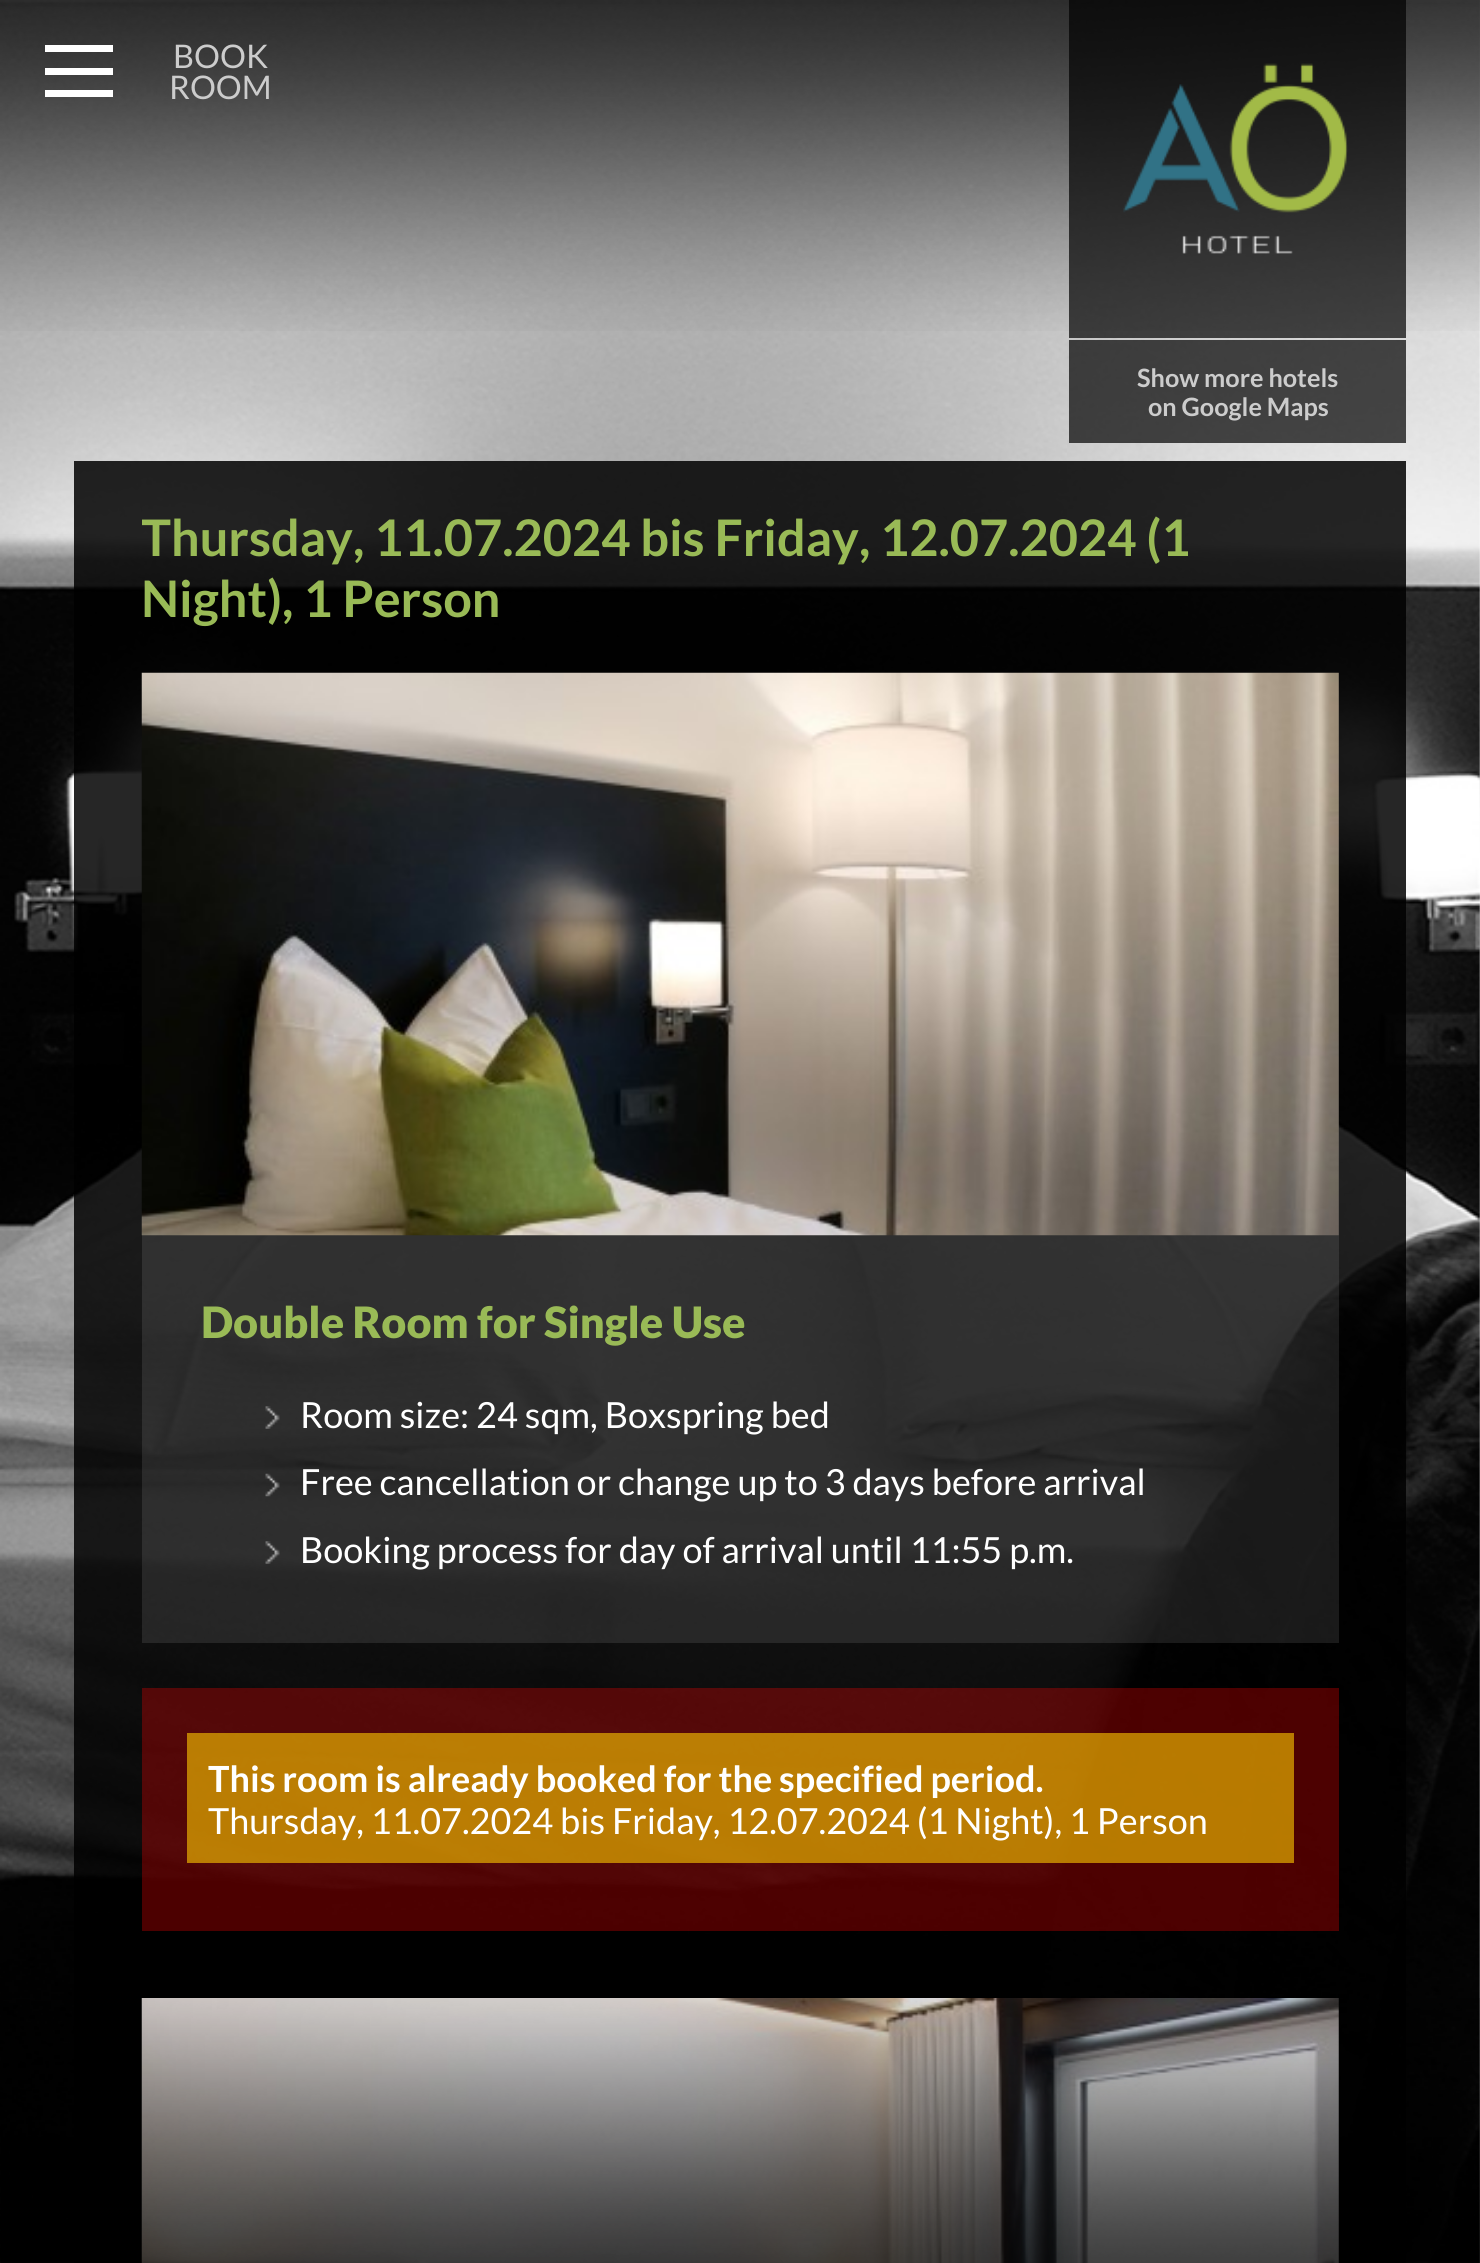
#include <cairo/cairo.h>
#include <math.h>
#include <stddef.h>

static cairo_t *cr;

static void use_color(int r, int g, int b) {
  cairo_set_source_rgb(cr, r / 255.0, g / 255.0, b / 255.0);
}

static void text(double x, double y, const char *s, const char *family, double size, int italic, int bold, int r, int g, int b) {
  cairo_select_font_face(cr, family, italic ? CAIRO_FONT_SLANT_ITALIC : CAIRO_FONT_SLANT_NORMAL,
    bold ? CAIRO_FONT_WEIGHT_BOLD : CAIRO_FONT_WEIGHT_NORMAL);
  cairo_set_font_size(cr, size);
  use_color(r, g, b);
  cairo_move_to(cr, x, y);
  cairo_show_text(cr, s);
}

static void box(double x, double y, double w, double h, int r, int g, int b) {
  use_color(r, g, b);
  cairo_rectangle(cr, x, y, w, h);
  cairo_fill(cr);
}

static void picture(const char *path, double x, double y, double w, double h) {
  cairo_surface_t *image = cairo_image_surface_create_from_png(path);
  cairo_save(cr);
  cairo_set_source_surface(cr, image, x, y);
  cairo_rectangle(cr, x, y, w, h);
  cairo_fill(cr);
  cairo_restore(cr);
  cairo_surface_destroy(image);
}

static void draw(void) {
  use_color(255, 255, 255);
  cairo_paint(cr);
  picture("img_01.png", 0, 0, 1480, 2263);
  picture("img_02.png", 0, 0, 1480, 331);
  box(45, 45, 68, 7, 255, 255, 255);
  box(45, 68, 68, 7, 255, 255, 255);
  box(45, 90, 68, 7, 255, 255, 255);
  cairo_set_source_rgba(cr, 0, 0, 0, 0.7);
  cairo_rectangle(cr, 1069, 0, 337, 338);
  cairo_fill(cr);
  picture("img_03.png", 1123, 63, 225, 191);
  cairo_rectangle(cr, 1069, 340, 337, 103);
  cairo_fill(cr);
  cairo_set_source_rgba(cr, 0, 0, 0, 0.85);
  cairo_rectangle(cr, 74, 461, 1332, 1802);
  cairo_fill(cr);
  cairo_set_source_rgba(cr, 1, 1, 1, 0.1);
  cairo_rectangle(cr, 142, 673, 1197, 970);
  cairo_fill(cr);
  picture("img_04.png", 141, 672, 1198, 564);
  picture("img_05.png", 265, 1406, 15, 23);
  picture("img_06.png", 265, 1473, 15, 24);
  picture("img_07.png", 265, 1541, 15, 23);
  cairo_set_source_rgba(cr, 1, 0, 0, 0.3);
  cairo_rectangle(cr, 142, 1688, 1197, 243);
  cairo_fill(cr);
  cairo_set_source_rgba(cr, 1, 0.8, 0, 0.6);
  cairo_rectangle(cr, 187, 1733, 1107, 130);
  cairo_fill(cr);
  picture("img_08.png", 141, 1998, 1198, 265);
  picture("img_09.png", 1, 1998, 1479, 265);
  text(173, 68, "BOOK", "Lato", 32.5, 0, 0, 204, 204, 204);
  text(169, 99, "ROOM", "Lato", 32.5, 0, 0, 204, 204, 204);
  text(1137, 387, "Show more hotels", "Lato", 25.25, 0, 1, 204, 204, 204);
  text(1148, 416, "on Google Maps", "Lato", 25.25, 0, 1, 204, 204, 204);
  cairo_save(cr);
  cairo_rectangle(cr, 142, 506, 1197, 122);
  cairo_clip(cr);
  text(141, 556, "Thursday, 11.07.2024 bis Friday, 12.07.2024 (1", "Lato", 50.4, 0, 1, 153, 186, 86);
  cairo_restore(cr);
  text(141, 617, "Night), 1 Person", "Lato", 50.4, 0, 1, 153, 186, 86);
  text(201, 1338, "Double Room for Single Use", "Lato Black", 43.25, 0, 0, 153, 186, 86);
  text(300, 1428, "Room size: 24 sqm, Boxspring bed", "Lato", 36, 0, 0, 255, 255, 255);
  text(300, 1495, "Free cancellation or change up to 3 days before arrival", "Lato", 36, 0, 0, 255, 255, 255);
  text(300, 1563, "Booking process for day of arrival until 11:55 p.m.", "Lato", 36, 0, 0, 255, 255, 255);
  text(208, 1792, "This room is already booked for the specified period.", "Lato", 36, 0, 1, 255, 255, 255);
  text(208, 1834, "Thursday, 11.07.2024 bis Friday, 12.07.2024 (1 Night), 1 Person", "Lato", 36, 0, 0, 255, 255, 255);
}

int main(void) {
  cairo_surface_t *surface = cairo_image_surface_create(CAIRO_FORMAT_RGB24, 1480, 2263);
  cr = cairo_create(surface);
  cairo_font_options_t *options = cairo_font_options_create();
  cairo_font_options_set_hint_metrics(options, CAIRO_HINT_METRICS_OFF);
  cairo_font_options_set_hint_style(options, CAIRO_HINT_STYLE_NONE);
  cairo_set_font_options(cr, options);
  cairo_set_miter_limit(cr, 4);
  draw();
  cairo_surface_write_to_png(surface, "out.png");
  cairo_font_options_destroy(options);
  cairo_destroy(cr);
  cairo_surface_destroy(surface);
  return 0;
}
